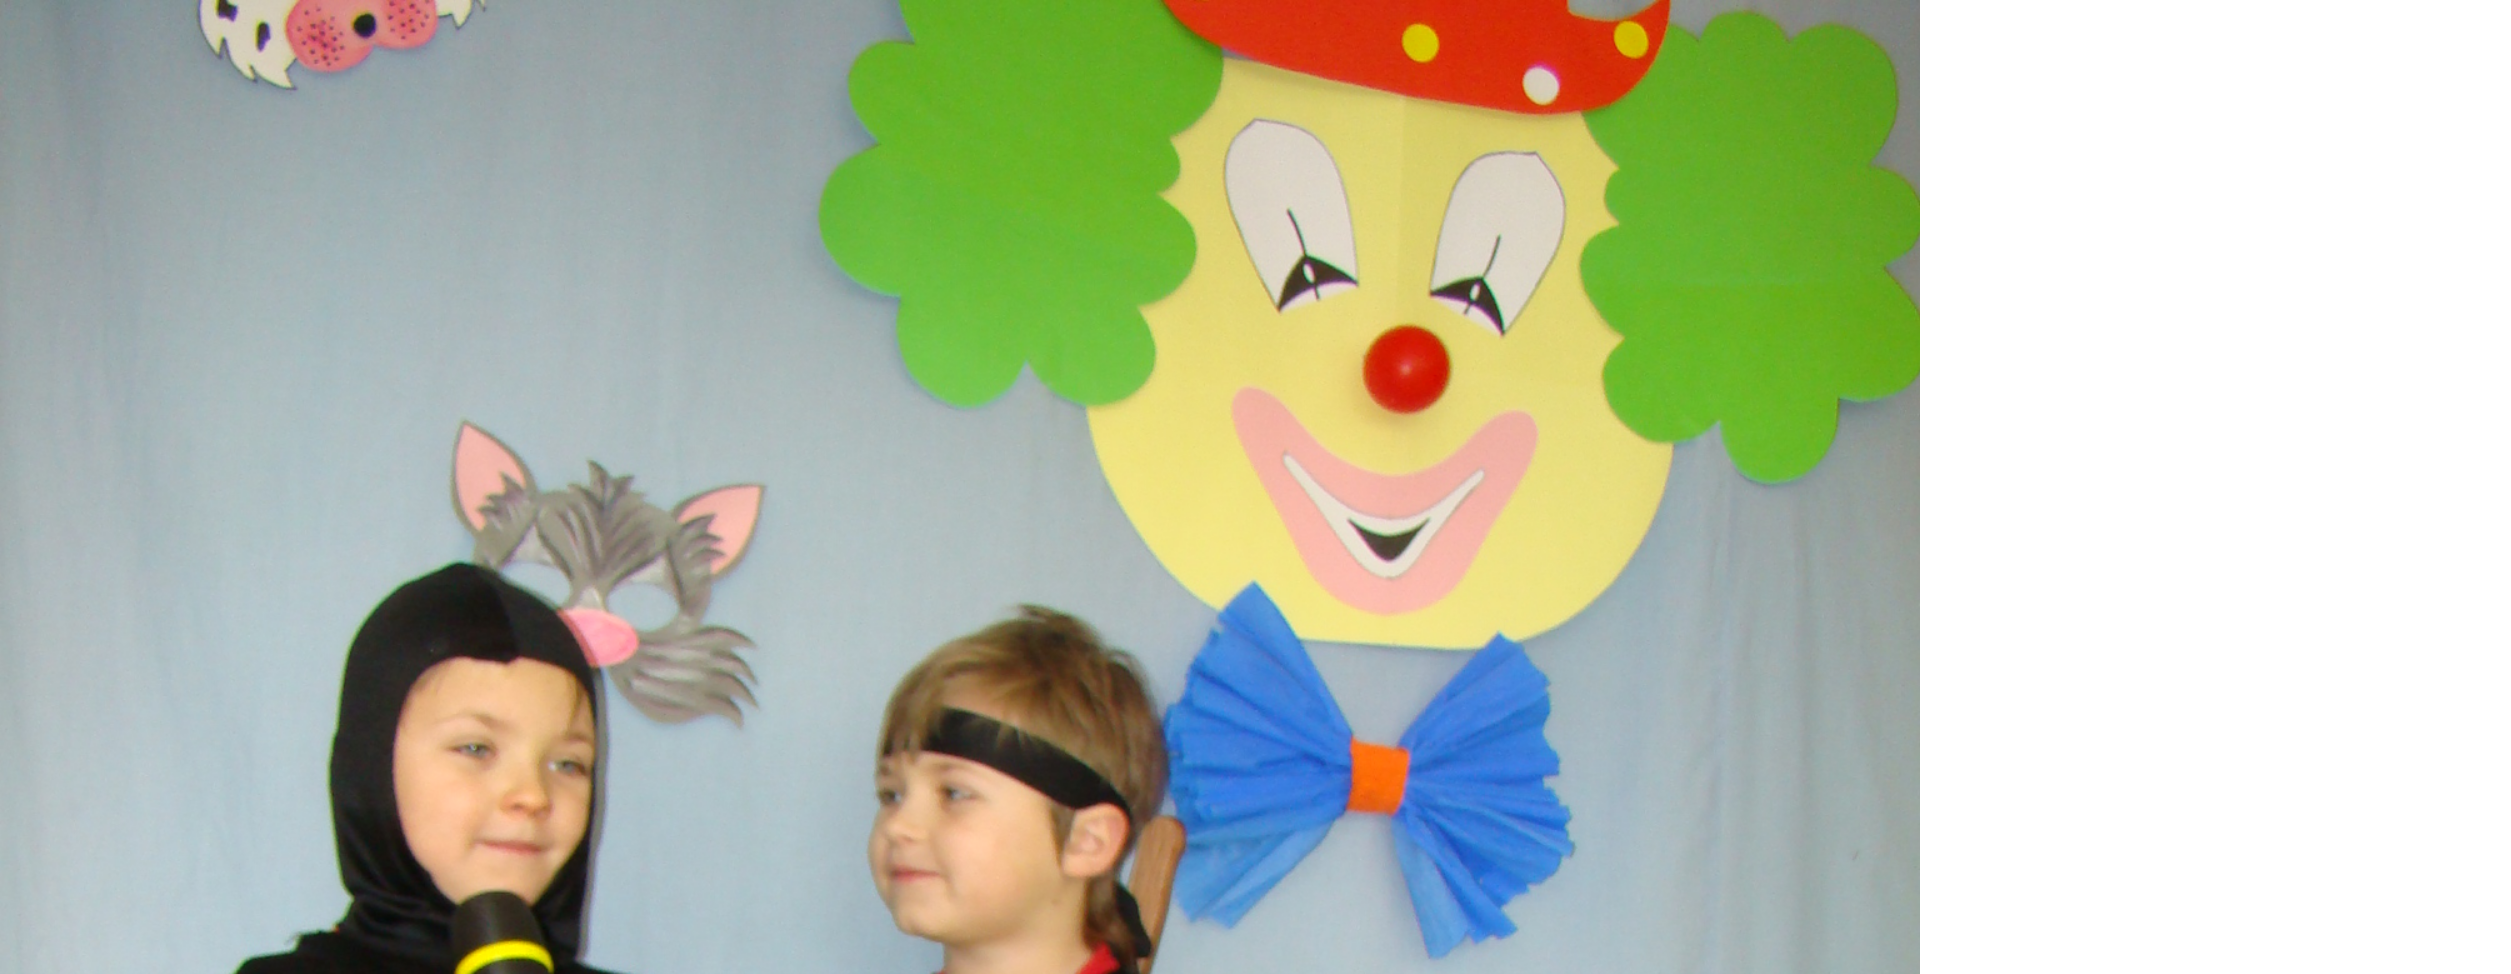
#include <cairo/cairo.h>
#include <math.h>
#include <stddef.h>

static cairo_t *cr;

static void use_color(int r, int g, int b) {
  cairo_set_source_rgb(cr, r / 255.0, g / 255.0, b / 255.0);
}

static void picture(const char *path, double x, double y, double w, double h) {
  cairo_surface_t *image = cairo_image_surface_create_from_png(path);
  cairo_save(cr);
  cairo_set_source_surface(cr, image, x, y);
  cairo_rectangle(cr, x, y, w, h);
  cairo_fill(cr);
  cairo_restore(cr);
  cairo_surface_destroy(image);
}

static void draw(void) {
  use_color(255, 255, 255);
  cairo_paint(cr);
  picture("img_01.png", 0, 0, 1920, 974);
}

int main(void) {
  cairo_surface_t *surface = cairo_image_surface_create(CAIRO_FORMAT_RGB24, 2511, 974);
  cr = cairo_create(surface);
  cairo_font_options_t *options = cairo_font_options_create();
  cairo_font_options_set_hint_metrics(options, CAIRO_HINT_METRICS_OFF);
  cairo_font_options_set_hint_style(options, CAIRO_HINT_STYLE_NONE);
  cairo_set_font_options(cr, options);
  cairo_set_miter_limit(cr, 4);
  draw();
  cairo_surface_write_to_png(surface, "out.png");
  cairo_font_options_destroy(options);
  cairo_destroy(cr);
  cairo_surface_destroy(surface);
  return 0;
}
